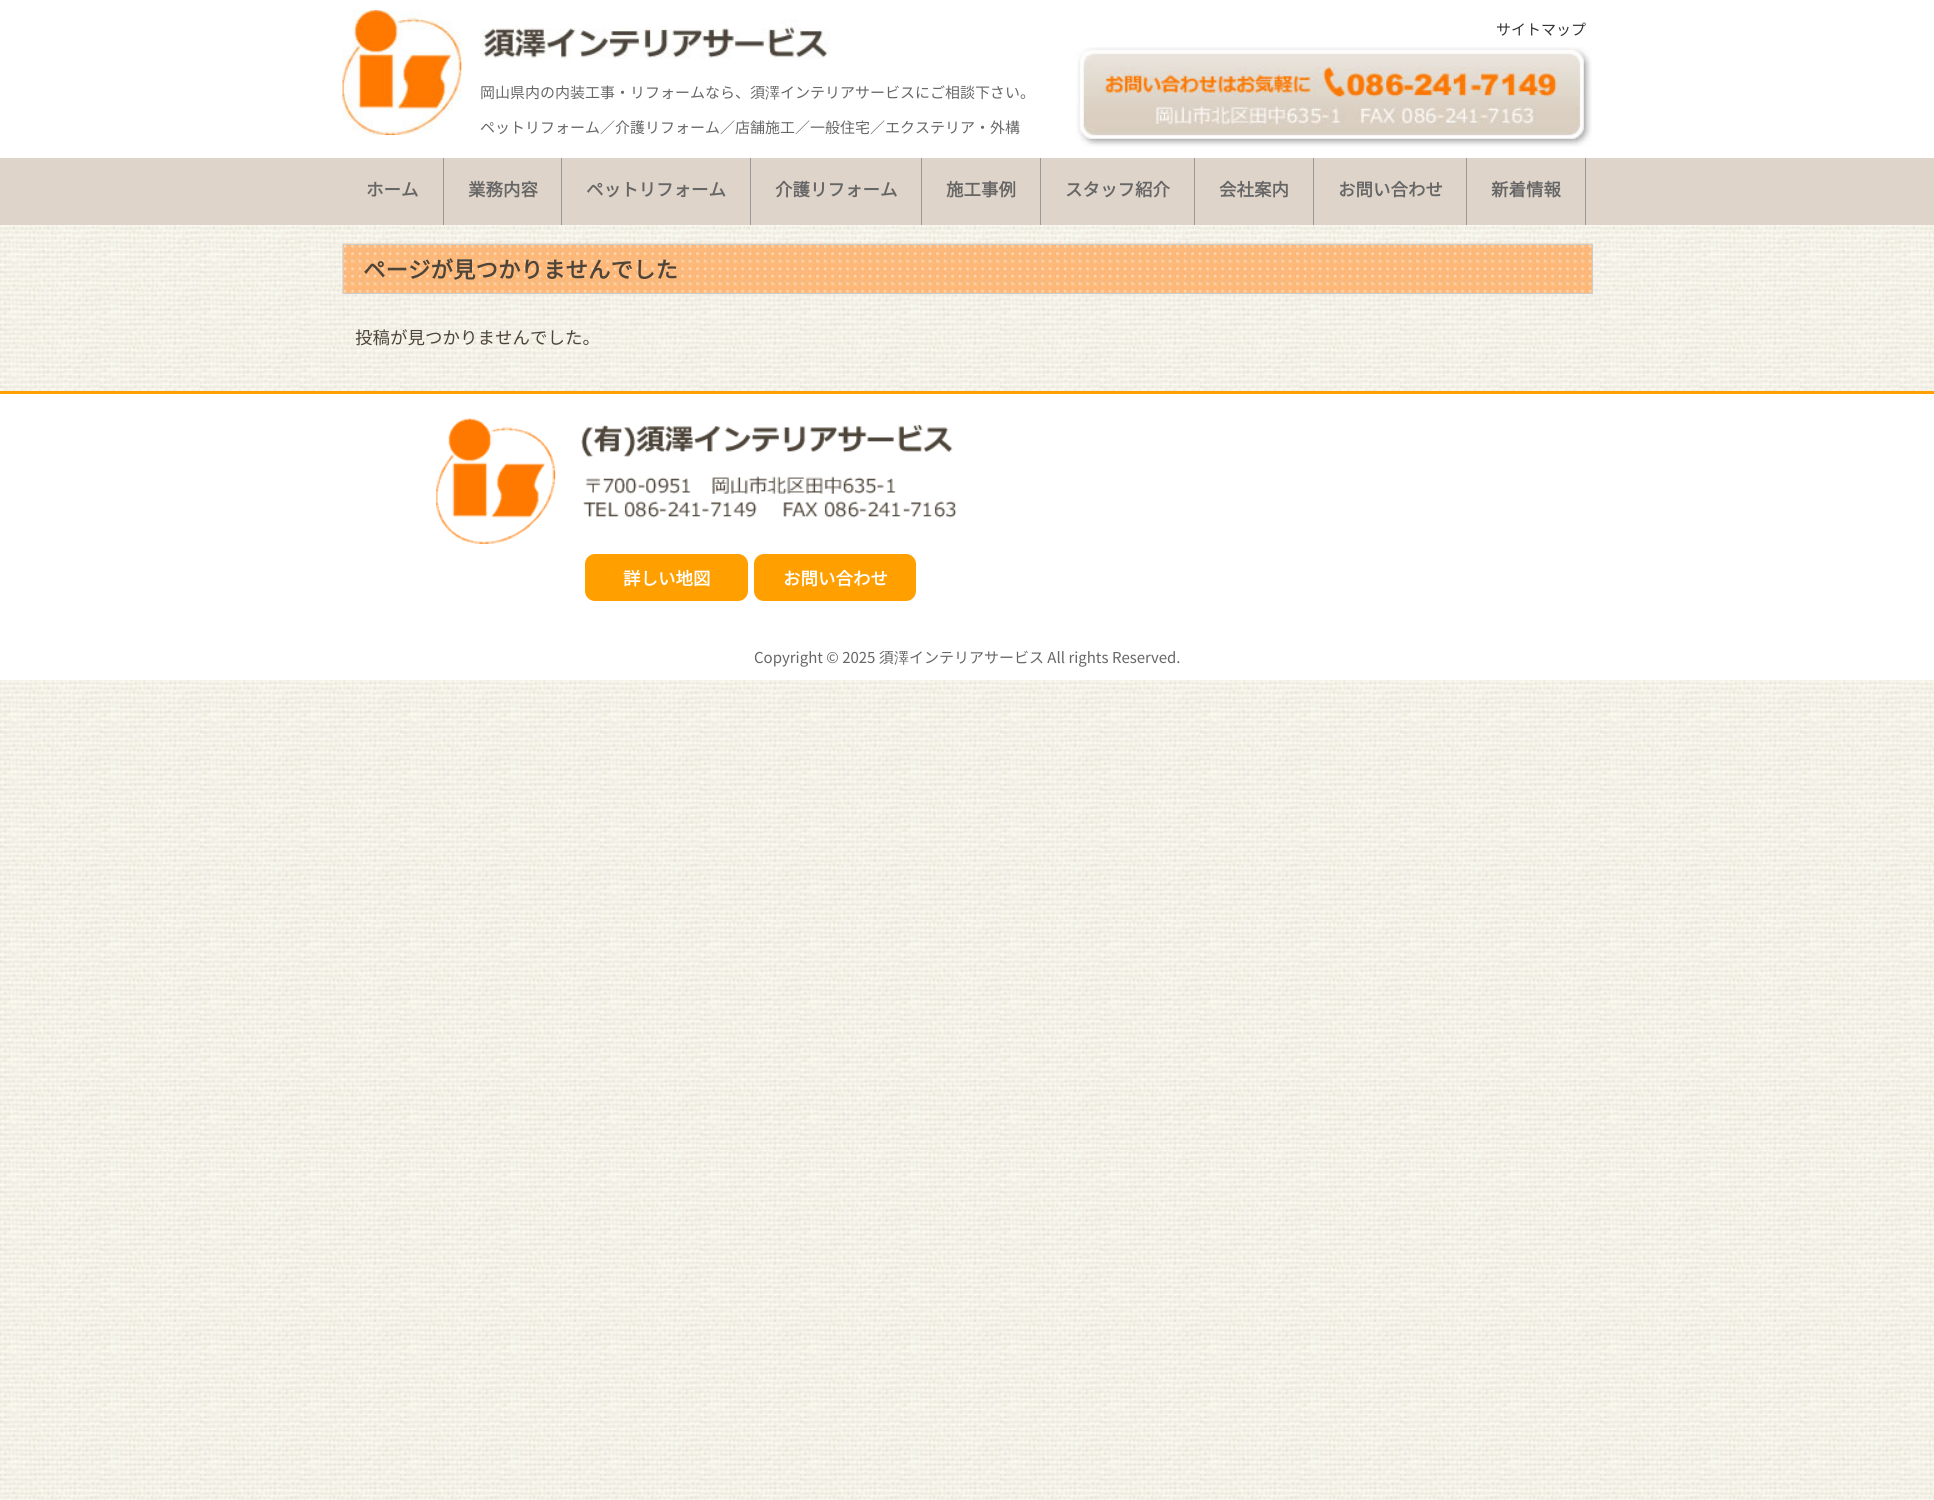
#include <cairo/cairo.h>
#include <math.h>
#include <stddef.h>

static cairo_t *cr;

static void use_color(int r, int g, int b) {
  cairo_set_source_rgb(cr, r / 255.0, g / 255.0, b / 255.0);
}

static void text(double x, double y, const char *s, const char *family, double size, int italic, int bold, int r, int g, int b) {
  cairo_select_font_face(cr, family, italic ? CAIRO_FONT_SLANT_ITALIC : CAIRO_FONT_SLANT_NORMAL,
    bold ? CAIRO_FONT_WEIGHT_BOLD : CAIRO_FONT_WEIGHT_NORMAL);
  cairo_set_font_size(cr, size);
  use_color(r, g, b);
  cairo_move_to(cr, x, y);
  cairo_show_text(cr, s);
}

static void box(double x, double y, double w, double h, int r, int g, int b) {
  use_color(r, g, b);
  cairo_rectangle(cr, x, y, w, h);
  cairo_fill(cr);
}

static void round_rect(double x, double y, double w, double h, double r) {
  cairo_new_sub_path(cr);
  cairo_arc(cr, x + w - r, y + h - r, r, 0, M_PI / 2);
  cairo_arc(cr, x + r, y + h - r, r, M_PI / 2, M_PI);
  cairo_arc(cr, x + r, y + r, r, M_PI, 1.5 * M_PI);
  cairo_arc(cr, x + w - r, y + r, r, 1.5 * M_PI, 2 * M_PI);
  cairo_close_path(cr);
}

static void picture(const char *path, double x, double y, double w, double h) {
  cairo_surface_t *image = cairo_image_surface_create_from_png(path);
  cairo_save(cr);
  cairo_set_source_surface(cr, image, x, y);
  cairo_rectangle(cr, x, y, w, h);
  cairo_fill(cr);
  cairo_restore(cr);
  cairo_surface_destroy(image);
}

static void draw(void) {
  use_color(255, 255, 255);
  cairo_paint(cr);
  picture("img_01.png", 0, 225, 1934, 1275);
  picture("img_02.png", 342, 10, 120, 125);
  picture("img_03.png", 1076, 47, 516, 100);
  picture("img_04.png", 480, 19, 350, 40);
  box(0, 158, 1934, 67, 223, 212, 201);
  box(443, 158, 1, 67, 153, 153, 153);
  box(561, 158, 1, 67, 153, 153, 153);
  box(750, 158, 1, 67, 153, 153, 153);
  box(921, 158, 1, 67, 153, 153, 153);
  box(1040, 158, 1, 67, 153, 153, 153);
  box(1194, 158, 1, 67, 153, 153, 153);
  box(1313, 158, 1, 67, 153, 153, 153);
  box(1466, 158, 1, 67, 153, 153, 153);
  box(1585, 158, 1, 67, 153, 153, 153);
  picture("img_05.png", 342, 243, 1251, 51);
  cairo_rectangle(cr, 343.5, 244.5, 1249, 49);
  use_color(204, 204, 204);
  cairo_set_line_width(cr, 1);
  cairo_stroke(cr);
  box(0, 394, 1934, 286, 255, 255, 255);
  box(0, 391, 1934, 3, 255, 159, 0);
  picture("img_06.png", 436, 418, 521, 126);
  round_rect(585, 554, 163, 47, 10);
  cairo_fill(cr);
  round_rect(754, 554, 162, 47, 10);
  cairo_fill(cr);
  text(1496, 35, "サイトマップ", "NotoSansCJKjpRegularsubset", 15, 0, 0, 51, 51, 51);
  text(480, 98, "岡山県内の内装工事・リフォームなら、須", "NotoSansCJKjpRegularsubset", 15, 0, 0, 102, 102, 102);
  text(765, 98, "澤", "WenQuanYi Zen Hei Medium", 15, 0, 0, 102, 102, 102);
  text(780, 98, "インテリアサービスにご相談下さい。", "NotoSansCJKjpRegularsubset", 15, 0, 0, 102, 102, 102);
  text(480, 133, "ペットリフォーム／介護リフォーム／店舗施工／一般住宅／エクステリア・外構", "NotoSansCJKjpRegularsubset", 15, 0, 0, 102, 102, 102);
  text(366, 196, "ホーム", "NotoSansCJKjpRegularsubset", 17.5, 0, 1, 102, 102, 102);
  text(468, 196, "業務内容", "NotoSansCJKjpRegularsubset", 17.5, 0, 1, 102, 102, 102);
  text(586, 196, "ペットリフォーム", "NotoSansCJKjpRegularsubset", 17.5, 0, 1, 102, 102, 102);
  text(775, 196, "介護リフォーム", "NotoSansCJKjpRegularsubset", 17.5, 0, 1, 102, 102, 102);
  text(946, 196, "施工事例", "NotoSansCJKjpRegularsubset", 17.5, 0, 1, 102, 102, 102);
  text(1065, 196, "スタッフ紹介", "NotoSansCJKjpRegularsubset", 17.5, 0, 1, 102, 102, 102);
  text(1219, 196, "会社案内", "NotoSansCJKjpRegularsubset", 17.5, 0, 1, 102, 102, 102);
  text(1338, 196, "お問い合わせ", "NotoSansCJKjpRegularsubset", 17.5, 0, 1, 102, 102, 102);
  text(1491, 196, "新着情報", "NotoSansCJKjpRegularsubset", 17.5, 0, 1, 102, 102, 102);
  text(363, 278, "ページが見つかりませんでした", "NotoSansCJKjpRegularsubset", 22.5, 0, 1, 78, 69, 58);
  text(355, 344, "投稿が見つかりませんでした。", "NotoSansCJKjpRegularsubset", 17.5, 0, 0, 78, 69, 58);
  text(623, 585, "詳しい地図", "NotoSansCJKjpRegularsubset", 17.5, 0, 1, 255, 255, 255);
  text(783, 585, "お問い合わせ", "NotoSansCJKjpRegularsubset", 17.5, 0, 1, 255, 255, 255);
  text(754, 663, "Copyright © 2025 須", "NotoSansCJKjpRegularsubset", 15, 0, 0, 102, 102, 102);
  text(894, 663, "澤", "WenQuanYi Zen Hei Medium", 15, 0, 0, 102, 102, 102);
  text(909, 663, "インテリアサービス All rights Reserved.", "NotoSansCJKjpRegularsubset", 15, 0, 0, 102, 102, 102);
}

int main(void) {
  cairo_surface_t *surface = cairo_image_surface_create(CAIRO_FORMAT_RGB24, 1934, 1500);
  cr = cairo_create(surface);
  cairo_font_options_t *options = cairo_font_options_create();
  cairo_font_options_set_hint_metrics(options, CAIRO_HINT_METRICS_OFF);
  cairo_font_options_set_hint_style(options, CAIRO_HINT_STYLE_NONE);
  cairo_set_font_options(cr, options);
  cairo_set_miter_limit(cr, 4);
  draw();
  cairo_surface_write_to_png(surface, "out.png");
  cairo_font_options_destroy(options);
  cairo_destroy(cr);
  cairo_surface_destroy(surface);
  return 0;
}
